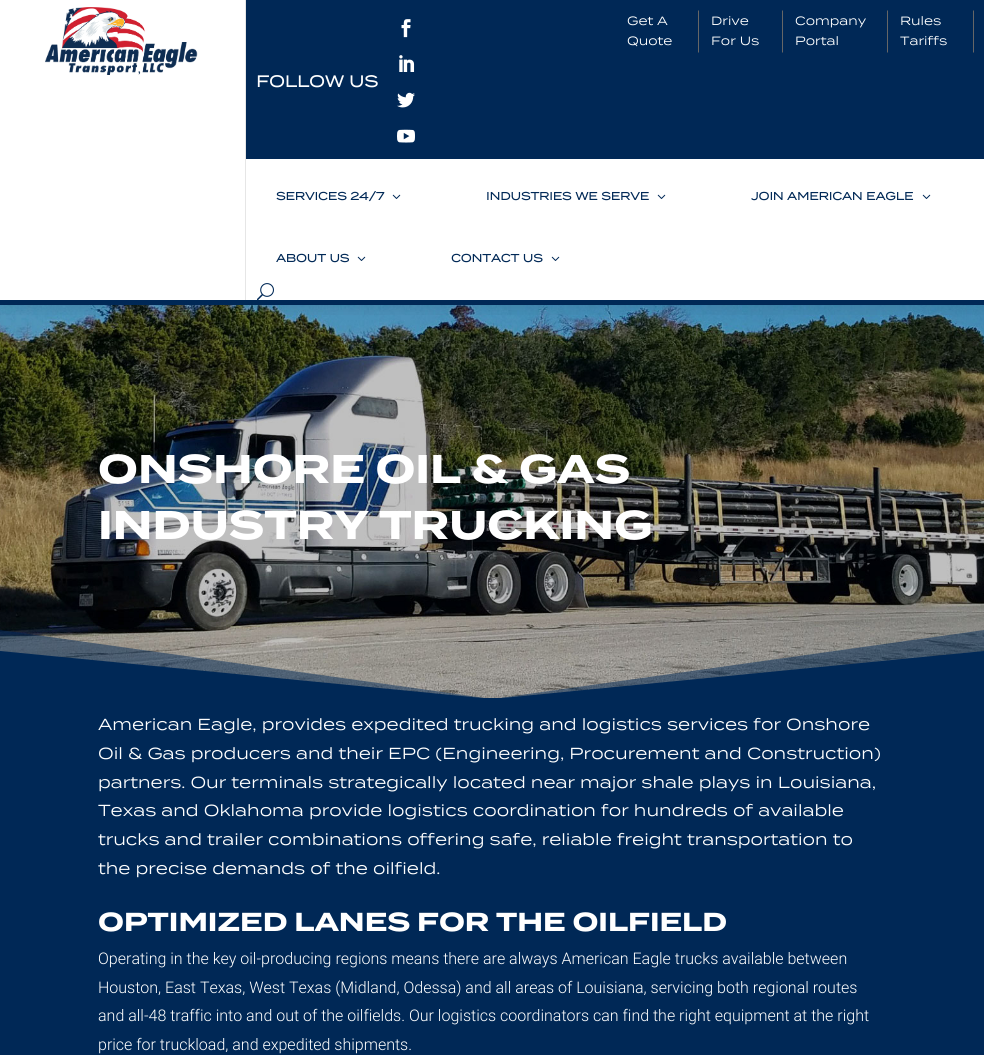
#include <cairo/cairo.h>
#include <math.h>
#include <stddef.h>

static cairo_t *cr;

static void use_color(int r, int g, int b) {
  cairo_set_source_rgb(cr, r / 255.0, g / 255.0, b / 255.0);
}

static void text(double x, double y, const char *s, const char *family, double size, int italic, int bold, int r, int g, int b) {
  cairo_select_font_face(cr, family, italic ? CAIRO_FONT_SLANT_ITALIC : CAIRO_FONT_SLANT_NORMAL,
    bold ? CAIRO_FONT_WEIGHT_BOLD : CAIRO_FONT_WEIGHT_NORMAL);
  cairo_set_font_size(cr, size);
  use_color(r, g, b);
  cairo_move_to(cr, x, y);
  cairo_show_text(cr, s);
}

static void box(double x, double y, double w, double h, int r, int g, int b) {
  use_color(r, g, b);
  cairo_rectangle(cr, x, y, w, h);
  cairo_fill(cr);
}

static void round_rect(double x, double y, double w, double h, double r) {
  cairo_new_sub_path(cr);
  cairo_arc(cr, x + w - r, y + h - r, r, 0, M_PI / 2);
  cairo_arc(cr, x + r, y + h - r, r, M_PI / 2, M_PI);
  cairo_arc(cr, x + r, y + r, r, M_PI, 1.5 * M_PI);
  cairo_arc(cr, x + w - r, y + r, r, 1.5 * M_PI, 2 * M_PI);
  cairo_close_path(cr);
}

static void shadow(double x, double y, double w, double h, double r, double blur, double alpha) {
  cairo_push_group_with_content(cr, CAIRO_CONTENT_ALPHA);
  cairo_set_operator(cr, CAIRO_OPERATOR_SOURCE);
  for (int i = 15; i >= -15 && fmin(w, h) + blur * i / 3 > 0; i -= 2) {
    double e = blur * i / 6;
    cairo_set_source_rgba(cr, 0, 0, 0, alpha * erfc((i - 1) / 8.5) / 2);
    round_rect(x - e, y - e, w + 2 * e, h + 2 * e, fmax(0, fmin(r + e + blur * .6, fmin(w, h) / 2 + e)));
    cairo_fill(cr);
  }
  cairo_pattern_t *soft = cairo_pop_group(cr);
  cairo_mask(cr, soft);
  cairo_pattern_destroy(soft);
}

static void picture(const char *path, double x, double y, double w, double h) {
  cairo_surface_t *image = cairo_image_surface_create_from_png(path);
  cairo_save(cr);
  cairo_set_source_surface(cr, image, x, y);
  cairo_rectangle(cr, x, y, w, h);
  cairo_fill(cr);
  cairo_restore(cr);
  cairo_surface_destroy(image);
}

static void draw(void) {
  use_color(255, 255, 255);
  cairo_paint(cr);
  picture("img_08.png", 0, 305, 984, 393);
  cairo_save(cr);
  cairo_rectangle(cr, 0, 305, 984, 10);
  cairo_clip(cr);
  use_color(0, 0, 0);
  shadow(0, 2, 984, 305, 0, 9, 0.1);
  cairo_restore(cr);
  box(0, 300, 984, 5, 0, 40, 86);
  box(245, 0, 1, 300, 230, 230, 230);
  picture("img_01.png", 45, 7, 153, 68);
  box(246, 0, 738, 159, 0, 40, 86);
  use_color(102, 102, 102);
  cairo_new_path(cr);
  cairo_move_to(cr, 699, 10);
  cairo_line_to(cr, 699, 53);
  cairo_line_to(cr, 698, 52);
  cairo_line_to(cr, 698, 11);
  cairo_close_path(cr);
  cairo_fill(cr);
  cairo_new_path(cr);
  cairo_move_to(cr, 783, 10);
  cairo_line_to(cr, 783, 53);
  cairo_line_to(cr, 782, 52);
  cairo_line_to(cr, 782, 11);
  cairo_close_path(cr);
  cairo_fill(cr);
  cairo_new_path(cr);
  cairo_move_to(cr, 888, 10);
  cairo_line_to(cr, 888, 53);
  cairo_line_to(cr, 887, 52);
  cairo_line_to(cr, 887, 11);
  cairo_close_path(cr);
  cairo_fill(cr);
  cairo_new_path(cr);
  cairo_move_to(cr, 974, 10);
  cairo_line_to(cr, 974, 53);
  cairo_line_to(cr, 973, 52);
  cairo_line_to(cr, 973, 11);
  cairo_close_path(cr);
  cairo_fill(cr);
  picture("img_02.png", 401, 19, 10, 19);
  picture("img_03.png", 399, 55, 16, 17);
  picture("img_04.png", 397, 92, 18, 16);
  picture("img_05.png", 397, 129, 18, 14);
  picture("img_06.png", 392, 194, 9, 5);
  picture("img_06.png", 657, 194, 9, 5);
  picture("img_06.png", 922, 194, 9, 5);
  picture("img_06.png", 357, 256, 9, 5);
  picture("img_06.png", 551, 256, 9, 5);
  picture("img_07.png", 257, 283, 17, 17);
  box(0, 698, 984, 357, 0, 40, 86);
  cairo_set_source_rgba(cr, 0, 0.157, 0.337, 0.5);
  cairo_new_path(cr);
  cairo_move_to(cr, 492, 699);
  cairo_line_to(cr, 0, 630);
  cairo_line_to(cr, 0, 699);
  cairo_line_to(cr, 984, 699);
  cairo_line_to(cr, 984, 630);
  cairo_close_path(cr);
  cairo_fill(cr);
  use_color(0, 40, 86);
  cairo_new_path(cr);
  cairo_move_to(cr, 492, 699);
  cairo_line_to(cr, 0, 651);
  cairo_line_to(cr, 0, 699);
  cairo_line_to(cr, 984, 699);
  cairo_line_to(cr, 984, 651);
  cairo_close_path(cr);
  cairo_fill(cr);
  text(627, 25, "Get A", "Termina", 12, 0, 0, 255, 255, 255);
  text(627, 45, "Quote", "Termina", 12, 0, 0, 255, 255, 255);
  text(711, 25, "Drive", "Termina", 12, 0, 0, 255, 255, 255);
  text(711, 45, "For Us", "Termina", 12, 0, 0, 255, 255, 255);
  text(795, 25, "Company", "Termina", 12, 0, 0, 255, 255, 255);
  text(795, 45, "Portal", "Termina", 12, 0, 0, 255, 255, 255);
  text(900, 25, "Rules", "Termina", 12, 0, 0, 255, 255, 255);
  text(900, 45, "Tariffs", "Termina", 12, 0, 0, 255, 255, 255);
  text(256, 87, "FOLLOW US", "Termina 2", 16, 0, 1, 255, 255, 255);
  text(276, 200, "SERVICES 24/7", "Termina 2", 11, 0, 1, 0, 40, 86);
  text(486, 200, "INDUSTRIES WE SERVE", "Termina 2", 11, 0, 1, 0, 40, 86);
  text(751, 200, "JOIN AMERICAN EAGLE", "Termina 2", 11, 0, 1, 0, 40, 86);
  text(276, 262, "ABOUT US", "Termina 2", 11, 0, 1, 0, 40, 86);
  text(451, 262, "CONTACT US", "Termina 2", 11, 0, 1, 0, 40, 86);
  text(98, 483, "ONSHORE OIL & GAS", "Termina", 40, 0, 1, 255, 255, 255);
  text(98, 539, "INDUSTRY TRUCKING", "Termina", 40, 0, 1, 255, 255, 255);
  text(98, 730, "American Eagle, provides expedited trucking and logistics services for Onshore", "Termina", 16, 0, 0, 255, 255, 255);
  text(98, 759, "Oil & Gas producers and their EPC (Engineering, Procurement and Construction)", "Termina", 16, 0, 0, 255, 255, 255);
  text(98, 788, "partners. Our terminals strategically located near major shale plays in Louisiana,", "Termina", 16, 0, 0, 255, 255, 255);
  text(98, 816, "Texas and Oklahoma provide logistics coordination for hundreds of available", "Termina", 16, 0, 0, 255, 255, 255);
  text(98, 845, "trucks and trailer combinations offering safe, reliable freight transportation to", "Termina", 16, 0, 0, 255, 255, 255);
  text(98, 874, "the precise demands of the oilfield.", "Termina", 16, 0, 0, 255, 255, 255);
  text(98, 931, "OPTIMIZED LANES FOR THE OILFIELD", "Termina", 26, 0, 1, 255, 255, 255);
  text(98, 964, "Operating in the key oil-producing regions means there are always American Eagle trucks available between", "Roboto Light", 16, 0, 0, 255, 255, 255);
  text(98, 993, "Houston, East Texas, West Texas (Midland, Odessa) and all areas of Louisiana, servicing both regional routes", "Roboto Light", 16, 0, 0, 255, 255, 255);
  text(98, 1021, "and all-48 traffic into and out of the oilfields. Our logistics coordinators can find the right equipment at the right", "Roboto Light", 16, 0, 0, 255, 255, 255);
  text(98, 1050, "price for truckload, and expedited shipments.", "Roboto Light", 16, 0, 0, 255, 255, 255);
}

int main(void) {
  cairo_surface_t *surface = cairo_image_surface_create(CAIRO_FORMAT_RGB24, 984, 1055);
  cr = cairo_create(surface);
  cairo_font_options_t *options = cairo_font_options_create();
  cairo_font_options_set_hint_metrics(options, CAIRO_HINT_METRICS_OFF);
  cairo_font_options_set_hint_style(options, CAIRO_HINT_STYLE_NONE);
  cairo_set_font_options(cr, options);
  cairo_set_miter_limit(cr, 4);
  draw();
  cairo_surface_write_to_png(surface, "out.png");
  cairo_font_options_destroy(options);
  cairo_destroy(cr);
  cairo_surface_destroy(surface);
  return 0;
}
